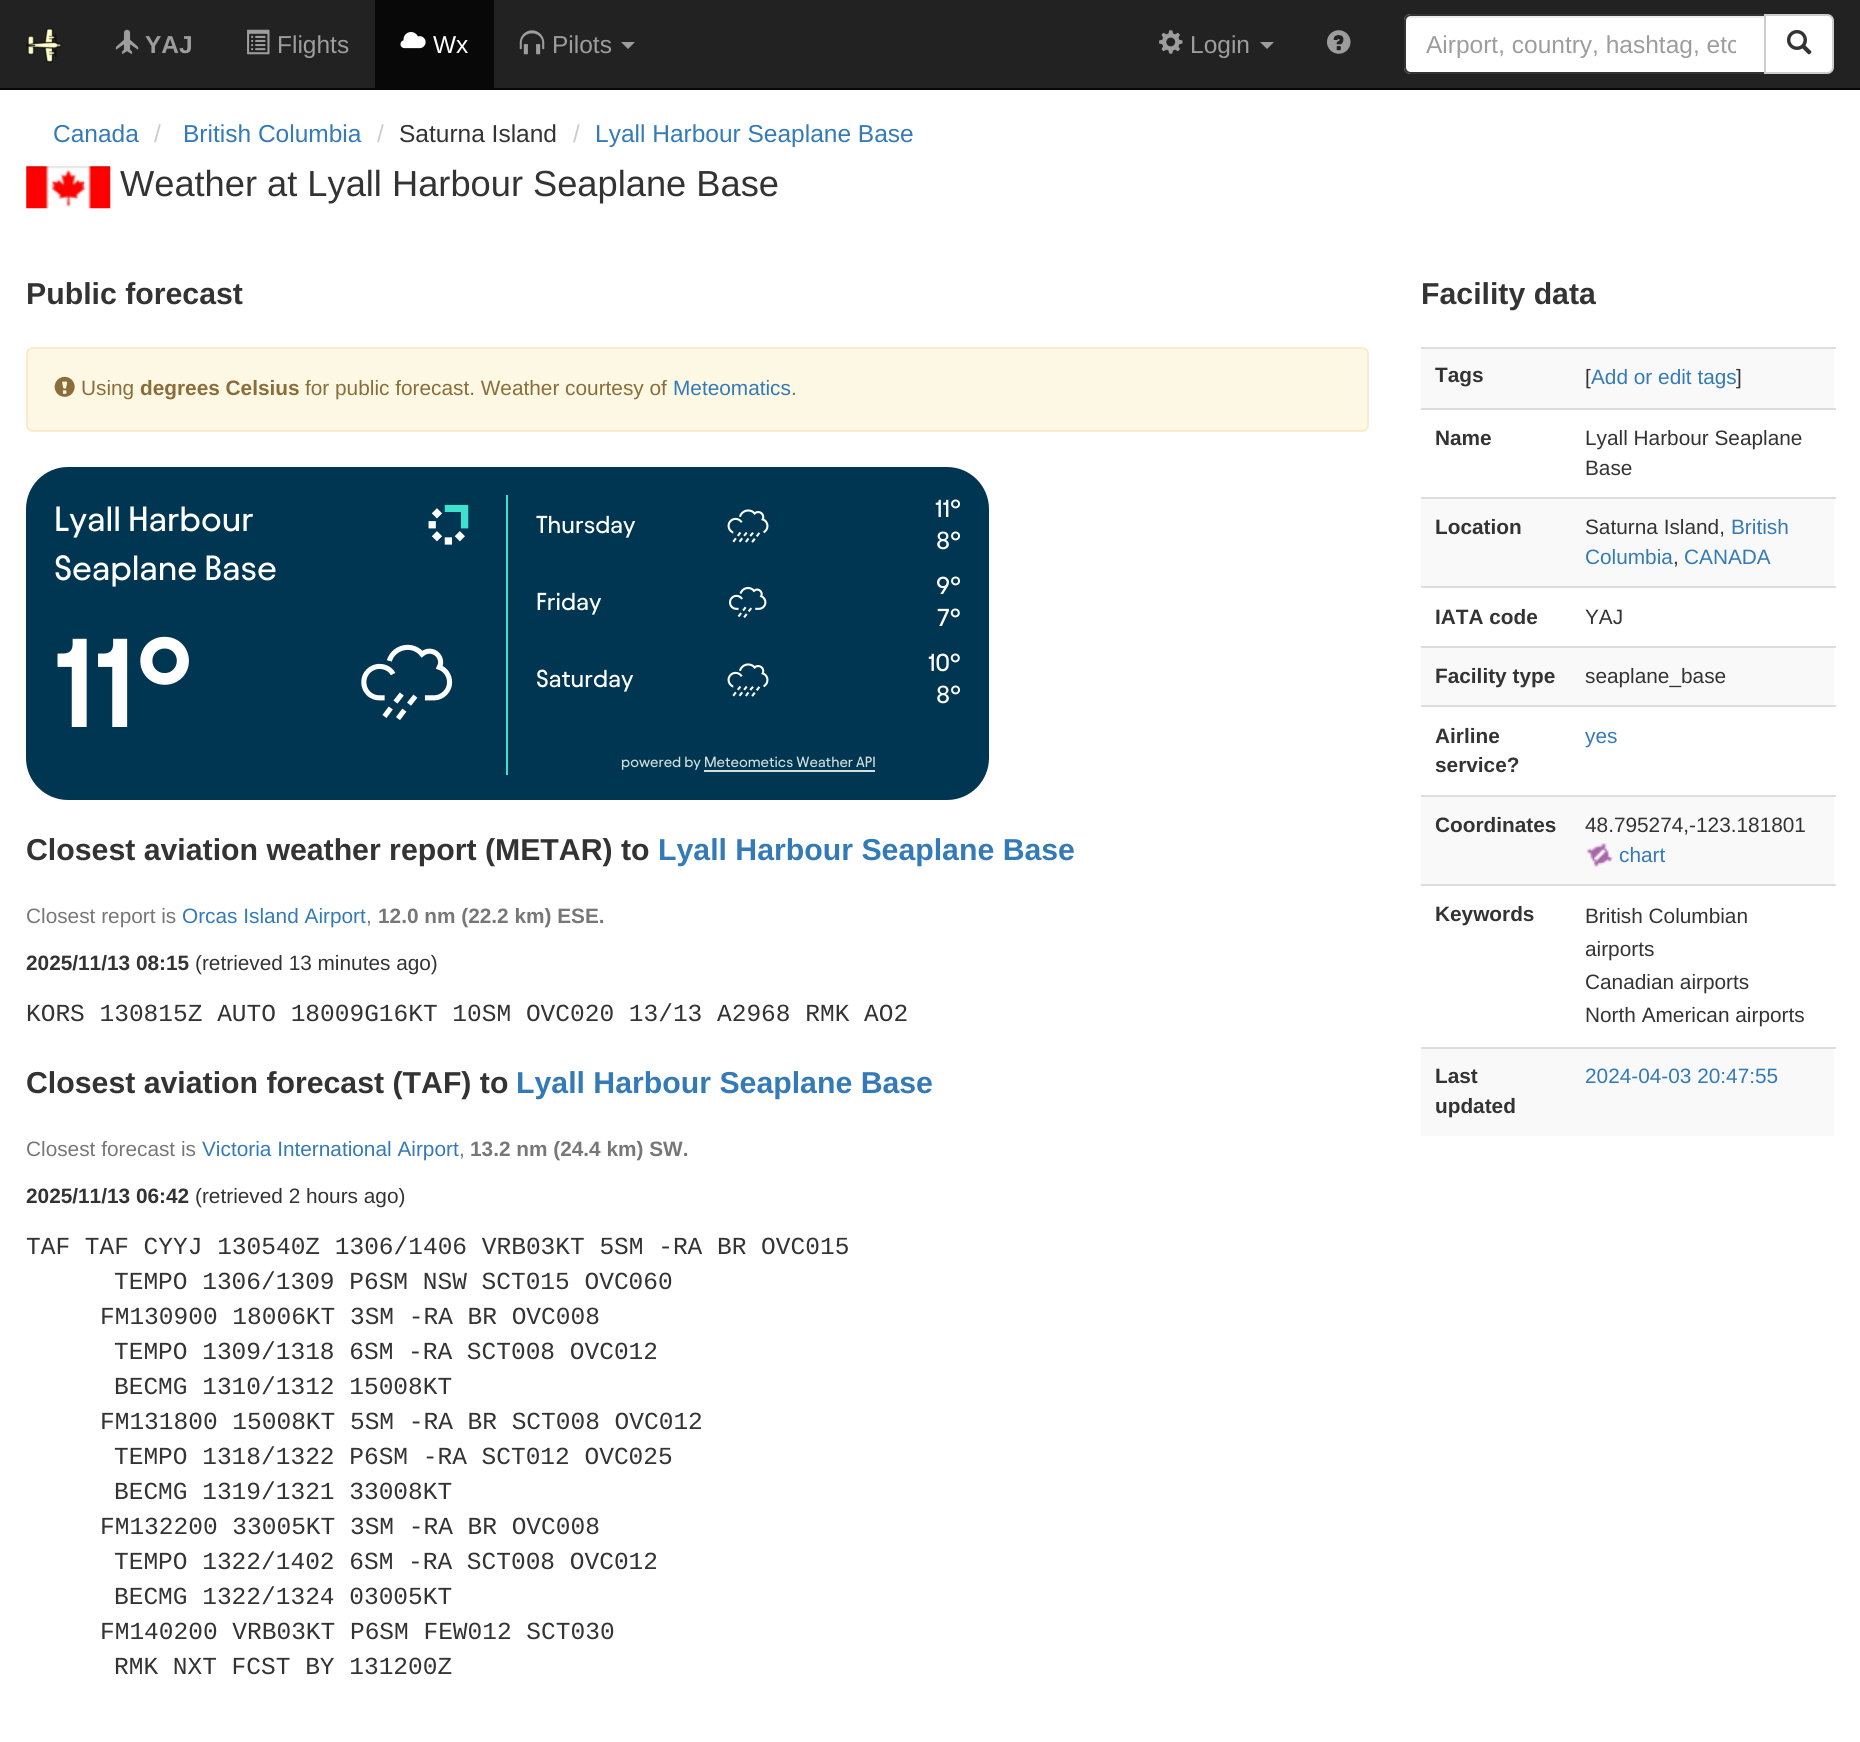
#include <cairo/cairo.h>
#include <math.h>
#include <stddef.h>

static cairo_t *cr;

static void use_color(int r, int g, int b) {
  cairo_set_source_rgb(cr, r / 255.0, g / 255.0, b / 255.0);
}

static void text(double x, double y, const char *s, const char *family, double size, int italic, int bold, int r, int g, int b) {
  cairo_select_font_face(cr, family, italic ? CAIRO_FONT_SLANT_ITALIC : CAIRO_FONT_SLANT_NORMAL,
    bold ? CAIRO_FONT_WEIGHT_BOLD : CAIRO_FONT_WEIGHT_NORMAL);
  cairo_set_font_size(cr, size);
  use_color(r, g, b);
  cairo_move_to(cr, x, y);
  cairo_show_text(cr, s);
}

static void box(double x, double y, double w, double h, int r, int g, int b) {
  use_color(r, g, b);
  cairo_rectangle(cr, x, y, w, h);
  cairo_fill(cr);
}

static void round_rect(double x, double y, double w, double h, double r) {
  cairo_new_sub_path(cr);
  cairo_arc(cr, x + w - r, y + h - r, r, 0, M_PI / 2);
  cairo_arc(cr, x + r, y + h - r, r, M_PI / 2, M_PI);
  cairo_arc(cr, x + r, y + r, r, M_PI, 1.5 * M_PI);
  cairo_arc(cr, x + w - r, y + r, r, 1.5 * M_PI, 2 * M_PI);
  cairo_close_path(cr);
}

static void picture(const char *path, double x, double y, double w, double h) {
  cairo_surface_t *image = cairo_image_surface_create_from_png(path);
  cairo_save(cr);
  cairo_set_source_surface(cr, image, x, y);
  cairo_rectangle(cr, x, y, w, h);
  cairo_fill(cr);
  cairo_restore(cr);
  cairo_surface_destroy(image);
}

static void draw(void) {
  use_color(255, 255, 255);
  cairo_paint(cr);
  box(0, 0, 1860, 88, 34, 34, 34);
  box(0, 88, 1860, 2, 8, 8, 8);
  picture("img_01.png", 26, 28, 36, 35);
  picture("img_02.png", 115, 29, 24, 25);
  picture("img_03.png", 247, 29, 23, 26);
  box(375, 0, 119, 88, 8, 8, 8);
  picture("img_04.png", 400, 32, 26, 17);
  picture("img_05.png", 519, 30, 26, 25);
  use_color(157, 157, 157);
  cairo_new_path(cr);
  cairo_move_to(cr, 621, 42);
  cairo_line_to(cr, 635, 42);
  cairo_line_to(cr, 628, 49);
  cairo_close_path(cr);
  cairo_fill(cr);
  picture("img_06.png", 1159, 30, 24, 24);
  cairo_new_path(cr);
  cairo_move_to(cr, 1260, 42);
  cairo_line_to(cr, 1274, 42);
  cairo_line_to(cr, 1267, 49);
  cairo_close_path(cr);
  cairo_fill(cr);
  picture("img_07.png", 1327, 30, 24, 24);
  use_color(255, 255, 255);
  cairo_new_path(cr);
  cairo_move_to(cr, 1411, 14);
  cairo_line_to(cr, 1766, 14);
  cairo_line_to(cr, 1766, 74);
  cairo_line_to(cr, 1411, 74);
  cairo_curve_to(cr, 1407, 74, 1404, 71, 1404, 67);
  cairo_line_to(cr, 1404, 21);
  cairo_curve_to(cr, 1404, 17, 1407, 14, 1411, 14);
  cairo_close_path(cr);
  cairo_fill(cr);
  use_color(236, 236, 236);
  cairo_new_path(cr);
  cairo_move_to(cr, 1410, 18);
  cairo_line_to(cr, 1764, 18);
  cairo_line_to(cr, 1764, 16);
  cairo_line_to(cr, 1410, 16);
  cairo_curve_to(cr, 1406, 16, 1405, 20, 1405, 23);
  cairo_curve_to(cr, 1405, 20, 1408, 18, 1410, 18);
  cairo_close_path(cr);
  cairo_fill(cr);
  cairo_new_path(cr);
  cairo_move_to(cr, 1411, 15);
  cairo_line_to(cr, 1765, 15);
  cairo_line_to(cr, 1765, 73);
  cairo_line_to(cr, 1411, 73);
  cairo_curve_to(cr, 1407.5, 73, 1405, 70.5, 1405, 67);
  cairo_line_to(cr, 1405, 21);
  cairo_curve_to(cr, 1405, 17.5, 1407.5, 15, 1411, 15);
  cairo_close_path(cr);
  use_color(51, 51, 51);
  cairo_stroke(cr);
  use_color(255, 255, 255);
  cairo_new_path(cr);
  cairo_move_to(cr, 1765, 15);
  cairo_line_to(cr, 1827, 15);
  cairo_curve_to(cr, 1830.5, 15, 1833, 17.5, 1833, 21);
  cairo_line_to(cr, 1833, 67);
  cairo_curve_to(cr, 1833, 70.5, 1830.5, 73, 1827, 73);
  cairo_line_to(cr, 1765, 73);
  cairo_close_path(cr);
  cairo_fill_preserve(cr);
  use_color(204, 204, 204);
  cairo_stroke(cr);
  picture("img_08.png", 1786, 29, 26, 26);
  picture("img_09.png", 26, 166, 85, 43);
  use_color(252, 248, 227);
  round_rect(27, 348, 1341, 83, 6);
  cairo_fill_preserve(cr);
  use_color(250, 235, 204);
  cairo_stroke(cr);
  picture("img_10.png", 54, 376, 21, 21);
  use_color(0, 54, 82);
  round_rect(26, 467, 963, 333, 42);
  cairo_fill(cr);
  box(506, 495, 2, 280, 64, 224, 208);
  picture("img_11.png", 428, 504, 41, 41);
  picture("img_12.png", 361, 644, 92, 76);
  picture("img_13.png", 727, 509, 42, 34);
  picture("img_14.png", 729, 587, 38, 31);
  picture("img_13.png", 727, 663, 42, 34);
  box(704, 770, 171, 2, 209, 223, 219);
  box(1421, 349, 413, 59, 249, 249, 249);
  box(1421, 347, 415, 2, 221, 221, 221);
  box(1421, 408, 415, 2, 221, 221, 221);
  box(1421, 499, 413, 87, 249, 249, 249);
  box(1421, 497, 415, 2, 221, 221, 221);
  box(1421, 586, 415, 2, 221, 221, 221);
  box(1421, 648, 413, 57, 249, 249, 249);
  box(1421, 646, 415, 2, 221, 221, 221);
  box(1421, 705, 415, 2, 221, 221, 221);
  box(1421, 797, 413, 87, 249, 249, 249);
  box(1421, 795, 415, 2, 221, 221, 221);
  picture("img_15.png", 1586, 843, 27, 24);
  box(1421, 884, 415, 2, 221, 221, 221);
  box(1421, 1049, 413, 87, 249, 249, 249);
  box(1421, 1047, 415, 2, 221, 221, 221);
  text(145, 53, "YAJ", "Liberation Sans", 24.5, 0, 1, 157, 157, 157);
  text(277, 53, "Flights", "Liberation Sans", 24.5, 0, 0, 157, 157, 157);
  text(433, 53, "Wx", "Liberation Sans", 24.5, 0, 0, 255, 255, 255);
  text(552, 53, "Pilots", "Liberation Sans", 24.5, 0, 0, 157, 157, 157);
  text(1190, 53, "Login", "Liberation Sans", 24.5, 0, 0, 157, 157, 157);
  cairo_save(cr);
  cairo_rectangle(cr, 1426, 30, 310, 28);
  cairo_clip(cr);
  text(1426, 53, "Airport, country, hashtag, etc", "Liberation Sans", 24.5, 0, 0, 157, 157, 157);
  cairo_restore(cr);
  text(53, 142, "Canada", "Liberation Sans", 24.5, 0, 0, 51, 122, 183);
  text(154, 142, "/", "Liberation Sans", 24.5, 0, 0, 204, 204, 204);
  text(183, 142, "British Columbia", "Liberation Sans", 24.5, 0, 0, 51, 122, 183);
  text(377, 142, "/", "Liberation Sans", 24.5, 0, 0, 204, 204, 204);
  text(399, 142, "Saturna Island", "Liberation Sans", 24.5, 0, 0, 51, 51, 51);
  text(573, 142, "/", "Liberation Sans", 24.5, 0, 0, 204, 204, 204);
  text(595, 142, "Lyall Harbour Seaplane Base", "Liberation Sans", 24.5, 0, 0, 51, 122, 183);
  text(120, 196, "Weather at Lyall Harbour Seaplane Base", "Liberation Sans", 36.25, 0, 0, 51, 51, 51);
  text(26, 304, "Public forecast", "Liberation Sans", 30.25, 0, 1, 51, 51, 51);
  text(81, 395, "Using", "Liberation Sans", 20.8, 0, 0, 138, 109, 59);
  text(140, 395, "degrees Celsius", "Liberation Sans", 20.8, 0, 1, 138, 109, 59);
  text(305, 395, "for public forecast. Weather courtesy of", "Liberation Sans", 20.8, 0, 0, 138, 109, 59);
  text(673, 395, "Meteomatics", "Liberation Sans", 20.8, 0, 0, 51, 122, 183);
  text(791, 395, ".", "Liberation Sans", 20.8, 0, 0, 138, 109, 59);
  text(54, 531, "Lyall Harbour", "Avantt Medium", 35, 0, 0, 255, 255, 255);
  text(54, 580, "Seaplane Base", "Avantt Medium", 35, 0, 0, 255, 255, 255);
  text(54, 727, "11°", "Avantt SemiBold", 126, 0, 0, 255, 255, 255);
  text(536, 533, "Thursday", "Avantt Medium", 24.5, 0, 0, 255, 255, 255);
  text(935, 517, "11°", "Avantt Medium", 24.5, 0, 0, 255, 255, 255);
  text(936, 549, "8°", "Avantt Medium", 24.5, 0, 0, 255, 255, 255);
  text(536, 610, "Friday", "Avantt Medium", 24.5, 0, 0, 255, 255, 255);
  text(936, 594, "9°", "Avantt Medium", 24.5, 0, 0, 255, 255, 255);
  text(937, 626, "7°", "Avantt Medium", 24.5, 0, 0, 255, 255, 255);
  text(536, 687, "Saturday", "Avantt Medium", 24.5, 0, 0, 255, 255, 255);
  text(928, 671, "10°", "Avantt Medium", 24.5, 0, 0, 255, 255, 255);
  text(936, 703, "8°", "Avantt Medium", 24.5, 0, 0, 255, 255, 255);
  text(621, 767, "powered by Meteometics Weather API", "Avantt Medium", 14.8, 0, 0, 209, 223, 219);
  text(26, 860, "Closest aviation weather report (METAR) to", "Liberation Sans", 30.25, 0, 1, 51, 51, 51);
  text(658, 860, "Lyall Harbour Seaplane Base", "Liberation Sans", 30.25, 0, 1, 51, 122, 183);
  text(26, 923, "Closest report is", "Liberation Sans", 20.8, 0, 0, 119, 119, 119);
  text(182, 923, "Orcas Island Airport", "Liberation Sans", 20.8, 0, 0, 51, 122, 183);
  text(366, 923, ",", "Liberation Sans", 20.8, 0, 0, 119, 119, 119);
  text(378, 923, "12.0 nm (22.2 km) ESE.", "Liberation Sans", 20.8, 0, 1, 119, 119, 119);
  text(26, 970, "2025/11/13 08:15", "Liberation Sans", 20.8, 0, 1, 51, 51, 51);
  text(195, 970, "(retrieved 13 minutes ago)", "Liberation Sans", 20.8, 0, 0, 51, 51, 51);
  text(26, 1021, "KORS 130815Z AUTO 18009G16KT 10SM OVC020 13/13 A2968 RMK AO2", "Liberation Mono", 24.5, 0, 0, 51, 51, 51);
  text(26, 1093, "Closest aviation forecast (TAF) to", "Liberation Sans", 30.25, 0, 1, 51, 51, 51);
  text(516, 1093, "Lyall Harbour Seaplane Base", "Liberation Sans", 30.25, 0, 1, 51, 122, 183);
  text(26, 1156, "Closest forecast is", "Liberation Sans", 20.8, 0, 0, 119, 119, 119);
  text(202, 1156, "Victoria International Airport", "Liberation Sans", 20.8, 0, 0, 51, 122, 183);
  text(459, 1156, ",", "Liberation Sans", 20.8, 0, 0, 119, 119, 119);
  text(470, 1156, "13.2 nm (24.4 km) SW.", "Liberation Sans", 20.8, 0, 1, 119, 119, 119);
  text(26, 1203, "2025/11/13 06:42", "Liberation Sans", 20.8, 0, 1, 51, 51, 51);
  text(195, 1203, "(retrieved 2 hours ago)", "Liberation Sans", 20.8, 0, 0, 51, 51, 51);
  text(26, 1254, "TAF TAF CYYJ 130540Z 1306/1406 VRB03KT 5SM -RA BR OVC015", "Liberation Mono", 24.5, 0, 0, 51, 51, 51);
  text(114, 1289, "TEMPO 1306/1309 P6SM NSW SCT015 OVC060", "Liberation Mono", 24.5, 0, 0, 51, 51, 51);
  text(100, 1324, "FM130900 18006KT 3SM -RA BR OVC008", "Liberation Mono", 24.5, 0, 0, 51, 51, 51);
  text(114, 1359, "TEMPO 1309/1318 6SM -RA SCT008 OVC012", "Liberation Mono", 24.5, 0, 0, 51, 51, 51);
  text(114, 1394, "BECMG 1310/1312 15008KT", "Liberation Mono", 24.5, 0, 0, 51, 51, 51);
  text(100, 1429, "FM131800 15008KT 5SM -RA BR SCT008 OVC012", "Liberation Mono", 24.5, 0, 0, 51, 51, 51);
  text(114, 1464, "TEMPO 1318/1322 P6SM -RA SCT012 OVC025", "Liberation Mono", 24.5, 0, 0, 51, 51, 51);
  text(114, 1499, "BECMG 1319/1321 33008KT", "Liberation Mono", 24.5, 0, 0, 51, 51, 51);
  text(100, 1534, "FM132200 33005KT 3SM -RA BR OVC008", "Liberation Mono", 24.5, 0, 0, 51, 51, 51);
  text(114, 1569, "TEMPO 1322/1402 6SM -RA SCT008 OVC012", "Liberation Mono", 24.5, 0, 0, 51, 51, 51);
  text(114, 1604, "BECMG 1322/1324 03005KT", "Liberation Mono", 24.5, 0, 0, 51, 51, 51);
  text(100, 1639, "FM140200 VRB03KT P6SM FEW012 SCT030", "Liberation Mono", 24.5, 0, 0, 51, 51, 51);
  text(114, 1674, "RMK NXT FCST BY 131200Z", "Liberation Mono", 24.5, 0, 0, 51, 51, 51);
  text(1421, 304, "Facility data", "Liberation Sans", 30.25, 0, 1, 51, 51, 51);
  text(1435, 382, "Tags", "Liberation Sans", 20.8, 0, 1, 51, 51, 51);
  text(1585, 384, "[", "Liberation Sans", 20.8, 0, 0, 51, 51, 51);
  text(1591, 384, "Add or edit tags", "Liberation Sans", 20.8, 0, 0, 51, 122, 183);
  text(1736, 384, "]", "Liberation Sans", 20.8, 0, 0, 51, 51, 51);
  text(1435, 445, "Name", "Liberation Sans", 20.8, 0, 1, 51, 51, 51);
  text(1585, 445, "Lyall Harbour Seaplane", "Liberation Sans", 20.8, 0, 0, 51, 51, 51);
  text(1585, 475, "Base", "Liberation Sans", 20.8, 0, 0, 51, 51, 51);
  text(1435, 534, "Location", "Liberation Sans", 20.8, 0, 1, 51, 51, 51);
  text(1585, 534, "Saturna Island,", "Liberation Sans", 20.8, 0, 0, 51, 51, 51);
  text(1731, 534, "British", "Liberation Sans", 20.8, 0, 0, 51, 122, 183);
  text(1585, 564, "Columbia", "Liberation Sans", 20.8, 0, 0, 51, 122, 183);
  text(1673, 564, ",", "Liberation Sans", 20.8, 0, 0, 51, 51, 51);
  text(1684, 564, "CANADA", "Liberation Sans", 20.8, 0, 0, 51, 122, 183);
  text(1435, 624, "IATA code", "Liberation Sans", 20.8, 0, 1, 51, 51, 51);
  text(1585, 624, "YAJ", "Liberation Sans", 20.8, 0, 0, 51, 51, 51);
  text(1435, 683, "Facility type", "Liberation Sans", 20.8, 0, 1, 51, 51, 51);
  text(1585, 683, "seaplane_base", "Liberation Sans", 20.8, 0, 0, 51, 51, 51);
  text(1435, 743, "Airline", "Liberation Sans", 20.8, 0, 1, 51, 51, 51);
  text(1435, 772, "service?", "Liberation Sans", 20.8, 0, 1, 51, 51, 51);
  text(1585, 743, "yes", "Liberation Sans", 20.8, 0, 0, 51, 122, 183);
  text(1435, 832, "Coordinates", "Liberation Sans", 20.8, 0, 1, 51, 51, 51);
  text(1585, 832, "48.795274,-123.181801", "Liberation Sans", 20.8, 0, 0, 51, 51, 51);
  text(1619, 862, "chart", "Liberation Sans", 20.8, 0, 0, 51, 122, 183);
  text(1435, 921, "Keywords", "Liberation Sans", 20.8, 0, 1, 51, 51, 51);
  text(1585, 923, "British Columbian", "Liberation Sans", 20.8, 0, 0, 51, 51, 51);
  text(1585, 956, "airports", "Liberation Sans", 20.8, 0, 0, 51, 51, 51);
  text(1585, 989, "Canadian airports", "Liberation Sans", 20.8, 0, 0, 51, 51, 51);
  text(1585, 1022, "North American airports", "Liberation Sans", 20.8, 0, 0, 51, 51, 51);
  text(1435, 1083, "Last", "Liberation Sans", 20.8, 0, 1, 51, 51, 51);
  text(1435, 1113, "updated", "Liberation Sans", 20.8, 0, 1, 51, 51, 51);
  text(1585, 1083, "2024-04-03 20:47:55", "Liberation Sans", 20.8, 0, 0, 51, 122, 183);
}

int main(void) {
  cairo_surface_t *surface = cairo_image_surface_create(CAIRO_FORMAT_RGB24, 1860, 1742);
  cr = cairo_create(surface);
  cairo_font_options_t *options = cairo_font_options_create();
  cairo_font_options_set_hint_metrics(options, CAIRO_HINT_METRICS_OFF);
  cairo_font_options_set_hint_style(options, CAIRO_HINT_STYLE_NONE);
  cairo_set_font_options(cr, options);
  cairo_set_miter_limit(cr, 4);
  draw();
  cairo_surface_write_to_png(surface, "out.png");
  cairo_font_options_destroy(options);
  cairo_destroy(cr);
  cairo_surface_destroy(surface);
  return 0;
}
